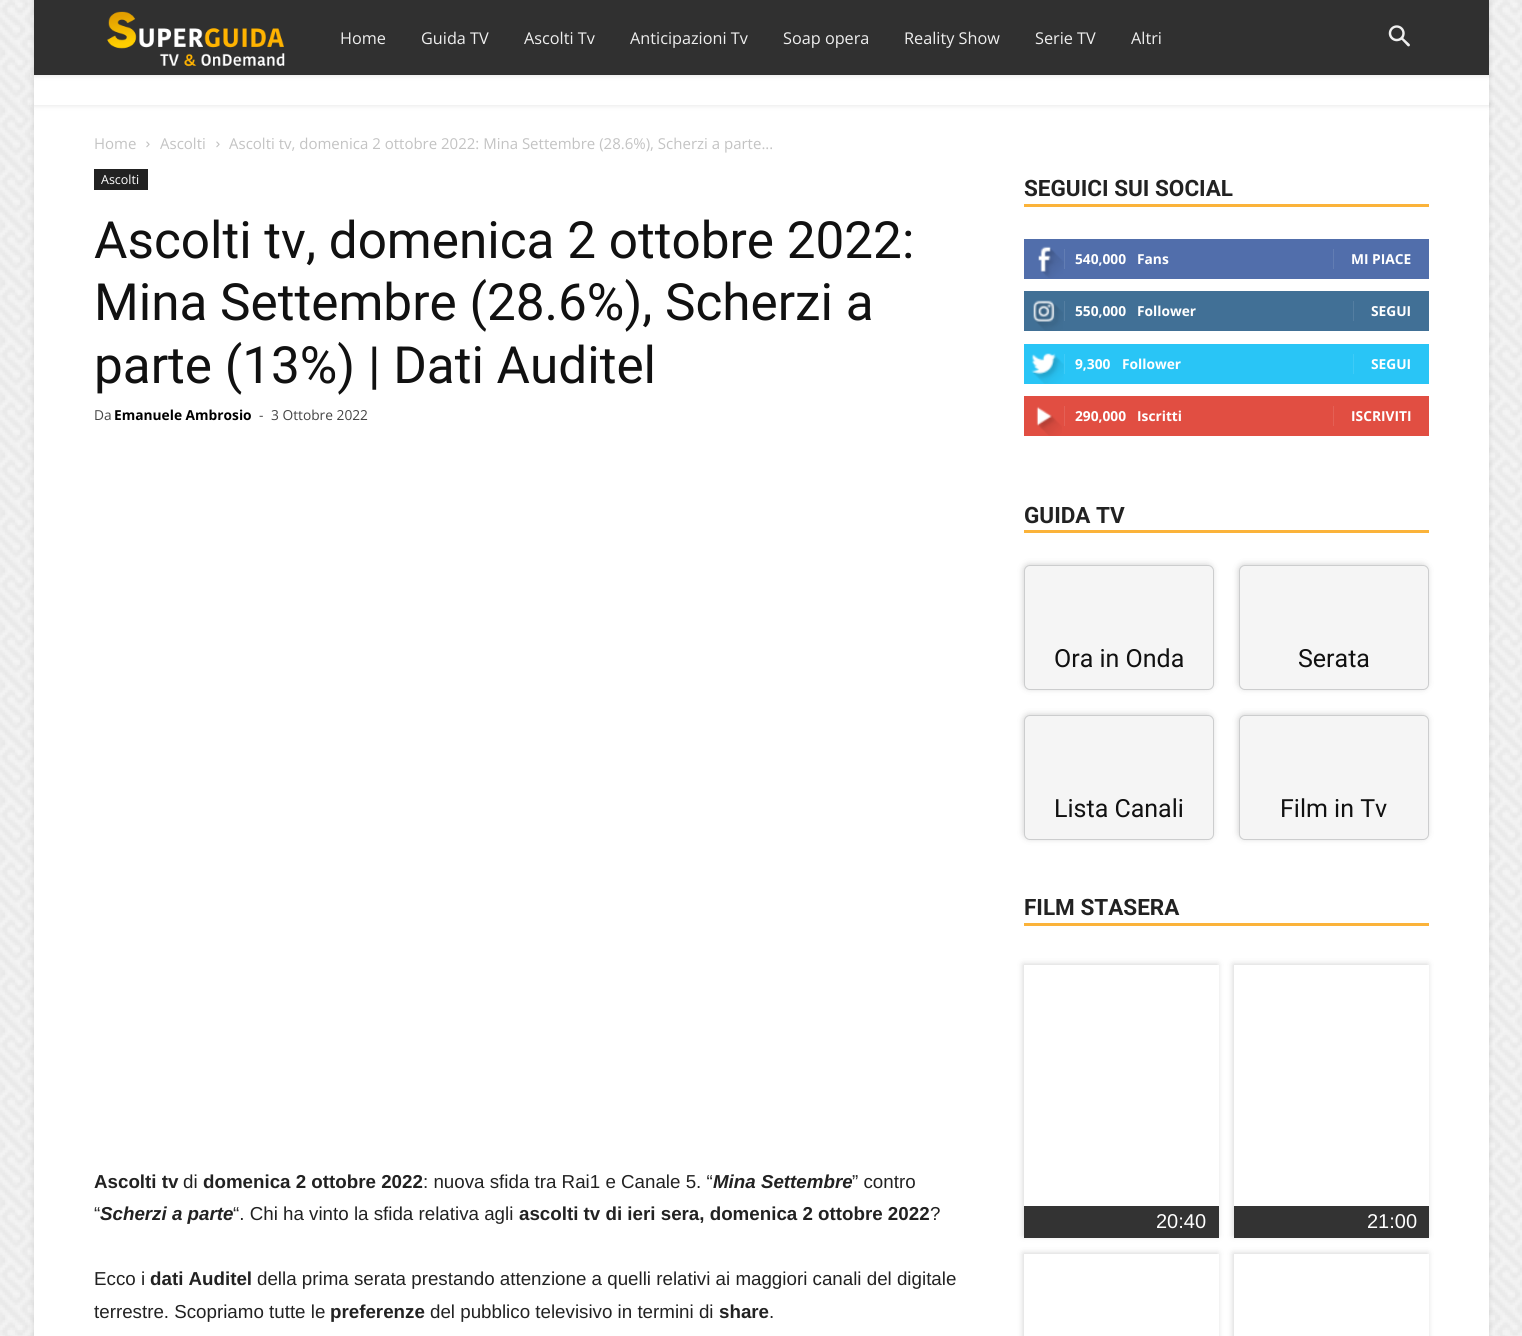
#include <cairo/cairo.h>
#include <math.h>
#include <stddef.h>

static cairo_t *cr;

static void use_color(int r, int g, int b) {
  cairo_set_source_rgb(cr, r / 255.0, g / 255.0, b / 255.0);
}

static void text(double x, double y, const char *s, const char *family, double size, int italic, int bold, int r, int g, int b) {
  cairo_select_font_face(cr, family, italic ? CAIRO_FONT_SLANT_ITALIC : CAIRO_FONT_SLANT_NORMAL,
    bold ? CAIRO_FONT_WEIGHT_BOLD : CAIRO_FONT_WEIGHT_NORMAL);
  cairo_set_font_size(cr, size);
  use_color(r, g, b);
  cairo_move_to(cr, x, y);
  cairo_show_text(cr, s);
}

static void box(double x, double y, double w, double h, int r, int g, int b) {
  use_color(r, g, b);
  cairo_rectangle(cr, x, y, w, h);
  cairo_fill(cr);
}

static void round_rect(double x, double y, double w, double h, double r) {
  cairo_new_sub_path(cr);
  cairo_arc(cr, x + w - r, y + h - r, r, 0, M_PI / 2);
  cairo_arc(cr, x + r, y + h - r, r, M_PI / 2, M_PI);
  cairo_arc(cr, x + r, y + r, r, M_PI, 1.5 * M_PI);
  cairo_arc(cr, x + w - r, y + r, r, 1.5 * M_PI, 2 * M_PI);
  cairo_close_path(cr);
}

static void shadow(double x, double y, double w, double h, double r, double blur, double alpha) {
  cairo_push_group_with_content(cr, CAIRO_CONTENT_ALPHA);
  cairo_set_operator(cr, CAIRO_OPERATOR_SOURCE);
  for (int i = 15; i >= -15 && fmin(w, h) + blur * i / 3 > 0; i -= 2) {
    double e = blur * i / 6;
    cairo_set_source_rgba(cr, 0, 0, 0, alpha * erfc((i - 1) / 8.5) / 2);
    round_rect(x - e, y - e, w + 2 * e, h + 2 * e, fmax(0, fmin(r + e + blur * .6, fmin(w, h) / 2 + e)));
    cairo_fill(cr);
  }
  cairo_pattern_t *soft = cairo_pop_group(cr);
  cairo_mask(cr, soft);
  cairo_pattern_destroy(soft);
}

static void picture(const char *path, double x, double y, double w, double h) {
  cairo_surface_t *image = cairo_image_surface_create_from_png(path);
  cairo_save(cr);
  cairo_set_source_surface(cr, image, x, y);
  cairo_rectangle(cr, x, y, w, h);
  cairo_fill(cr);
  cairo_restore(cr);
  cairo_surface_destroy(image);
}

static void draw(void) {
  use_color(255, 255, 255);
  cairo_paint(cr);
  picture("img_01.png", 0, 0, 1522, 1336);
  use_color(0, 0, 0);
  shadow(34, 105, 1455, 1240, 0, 3, 0.12);
  box(34, 105, 1455, 1231, 255, 255, 255);
  use_color(0, 0, 0);
  shadow(34, 75, 1455, 30, 0, 3, 0.12);
  box(34, 75, 1455, 30, 255, 255, 255);
  use_color(0, 0, 0);
  shadow(34, 0, 1455, 75, 0, 3, 0.12);
  box(34, 0, 1455, 75, 48, 48, 48);
  picture("img_02.png", 107, 11, 178, 56);
  picture("img_03.png", 1388, 25, 22, 22);
  picture("img_04.png", 146, 141, 4, 7);
  picture("img_04.png", 216, 141, 4, 7);
  box(94, 169, 54, 21, 34, 34, 34);
  box(1024, 204, 405, 3, 251, 179, 58);
  box(1024, 239, 405, 40, 81, 110, 171);
  picture("img_05.png", 1038, 246, 26, 32);
  box(1064, 249, 1, 20, 98, 125, 179);
  box(1333, 249, 1, 20, 98, 125, 179);
  box(1024, 291, 405, 40, 65, 112, 150);
  picture("img_06.png", 1033, 300, 30, 31);
  box(1064, 301, 1, 20, 84, 126, 161);
  box(1353, 301, 1, 20, 84, 126, 161);
  box(1024, 344, 405, 40, 41, 197, 246);
  picture("img_07.png", 1031, 353, 33, 31);
  box(1064, 354, 1, 20, 62, 203, 247);
  box(1353, 354, 1, 20, 62, 203, 247);
  box(1024, 396, 405, 40, 225, 78, 66);
  picture("img_08.png", 1036, 406, 26, 30);
  box(1064, 406, 1, 20, 228, 96, 85);
  box(1333, 406, 1, 20, 228, 96, 85);
  box(1024, 530, 405, 3, 251, 179, 58);
  use_color(50, 50, 50);
  shadow(1023, 564, 190, 125, 6, 3, 0.2);
  use_color(245, 245, 245);
  round_rect(1024.5, 565.5, 189, 124, 5.5);
  cairo_fill_preserve(cr);
  use_color(204, 205, 206);
  cairo_set_line_width(cr, 1);
  cairo_stroke(cr);
  use_color(50, 50, 50);
  shadow(1238, 564, 190, 125, 6, 3, 0.2);
  use_color(245, 245, 245);
  round_rect(1239.5, 565.5, 189, 124, 5.5);
  cairo_fill_preserve(cr);
  use_color(204, 205, 206);
  cairo_stroke(cr);
  use_color(50, 50, 50);
  shadow(1023, 714, 190, 125, 6, 3, 0.2);
  use_color(245, 245, 245);
  round_rect(1024.5, 715.5, 189, 124, 5.5);
  cairo_fill_preserve(cr);
  use_color(204, 205, 206);
  cairo_stroke(cr);
  use_color(50, 50, 50);
  shadow(1238, 714, 190, 125, 6, 3, 0.2);
  use_color(245, 245, 245);
  round_rect(1239.5, 715.5, 189, 124, 5.5);
  cairo_fill_preserve(cr);
  use_color(204, 205, 206);
  cairo_stroke(cr);
  box(1024, 923, 405, 3, 251, 179, 58);
  cairo_save(cr);
  cairo_set_fill_rule(cr, CAIRO_FILL_RULE_EVEN_ODD);
  cairo_new_path(cr);
  cairo_move_to(cr, 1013, 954);
  cairo_line_to(cr, 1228, 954);
  cairo_line_to(cr, 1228, 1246);
  cairo_line_to(cr, 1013, 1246);
  cairo_close_path(cr);
  cairo_move_to(cr, 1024, 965);
  cairo_line_to(cr, 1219, 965);
  cairo_line_to(cr, 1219, 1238);
  cairo_line_to(cr, 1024, 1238);
  cairo_close_path(cr);
  cairo_clip(cr);
  use_color(50, 50, 50);
  shadow(1023, 964, 195, 272, 0, 3, 0.2);
  cairo_restore(cr);
  cairo_set_source_rgba(cr, 0, 0, 0, 0.8);
  cairo_rectangle(cr, 1024, 1206, 195, 32);
  cairo_fill(cr);
  cairo_save(cr);
  cairo_set_fill_rule(cr, CAIRO_FILL_RULE_EVEN_ODD);
  cairo_new_path(cr);
  cairo_move_to(cr, 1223, 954);
  cairo_line_to(cr, 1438, 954);
  cairo_line_to(cr, 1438, 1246);
  cairo_line_to(cr, 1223, 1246);
  cairo_close_path(cr);
  cairo_move_to(cr, 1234, 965);
  cairo_line_to(cr, 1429, 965);
  cairo_line_to(cr, 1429, 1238);
  cairo_line_to(cr, 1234, 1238);
  cairo_close_path(cr);
  cairo_clip(cr);
  use_color(50, 50, 50);
  shadow(1233, 964, 195, 272, 0, 3, 0.2);
  cairo_restore(cr);
  cairo_rectangle(cr, 1234, 1206, 195, 32);
  cairo_fill(cr);
  cairo_save(cr);
  cairo_set_fill_rule(cr, CAIRO_FILL_RULE_EVEN_ODD);
  cairo_new_path(cr);
  cairo_move_to(cr, 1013, 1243);
  cairo_line_to(cr, 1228, 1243);
  cairo_line_to(cr, 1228, 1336);
  cairo_line_to(cr, 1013, 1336);
  cairo_close_path(cr);
  cairo_move_to(cr, 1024, 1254);
  cairo_line_to(cr, 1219, 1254);
  cairo_line_to(cr, 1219, 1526);
  cairo_line_to(cr, 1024, 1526);
  cairo_close_path(cr);
  cairo_clip(cr);
  use_color(50, 50, 50);
  shadow(1023, 1253, 195, 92, 0, 3, 0.2);
  cairo_restore(cr);
  cairo_save(cr);
  cairo_set_fill_rule(cr, CAIRO_FILL_RULE_EVEN_ODD);
  cairo_new_path(cr);
  cairo_move_to(cr, 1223, 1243);
  cairo_line_to(cr, 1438, 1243);
  cairo_line_to(cr, 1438, 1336);
  cairo_line_to(cr, 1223, 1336);
  cairo_close_path(cr);
  cairo_move_to(cr, 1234, 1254);
  cairo_line_to(cr, 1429, 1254);
  cairo_line_to(cr, 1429, 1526);
  cairo_line_to(cr, 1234, 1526);
  cairo_close_path(cr);
  cairo_clip(cr);
  use_color(50, 50, 50);
  shadow(1233, 1253, 195, 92, 0, 3, 0.2);
  cairo_restore(cr);
  text(340, 44, "Home", "Open Sans", 16.25, 0, 0, 239, 239, 239);
  text(421, 44, "Guida TV", "Open Sans", 16.25, 0, 0, 239, 239, 239);
  text(524, 44, "Ascolti Tv", "Open Sans", 16.25, 0, 0, 239, 239, 239);
  text(630, 44, "Anticipazioni Tv", "Open Sans", 16.25, 0, 0, 239, 239, 239);
  text(783, 44, "Soap opera", "Open Sans", 16.25, 0, 0, 239, 239, 239);
  text(904, 44, "Reality Show", "Open Sans", 16.25, 0, 0, 239, 239, 239);
  text(1035, 44, "Serie TV", "Open Sans", 16.25, 0, 0, 239, 239, 239);
  text(1131, 44, "Altri", "Open Sans", 16.25, 0, 0, 239, 239, 239);
  text(94, 149, "Home", "Open Sans", 15, 0, 0, 195, 195, 195);
  text(160, 149, "Ascolti", "Open Sans", 15, 0, 0, 195, 195, 195);
  text(229, 149, "Ascolti tv, domenica 2 ottobre 2022: Mina Settembre (28.6%), Scherzi a parte...", "Open Sans", 15, 0, 0, 195, 195, 195);
  text(101, 184, "Ascolti", "Open Sans", 12.5, 0, 0, 255, 255, 255);
  text(94, 258, "Ascolti tv, domenica 2 ottobre 2022:", "Roboto", 51.25, 0, 0, 17, 17, 17);
  text(94, 320, "Mina Settembre (28.6%), Scherzi a", "Roboto", 51.25, 0, 0, 17, 17, 17);
  text(94, 383, "parte (13%) | Dati Auditel", "Roboto", 51.25, 0, 0, 17, 17, 17);
  text(94, 420, "Da", "Open Sans", 13.75, 0, 0, 68, 68, 68);
  text(114, 420, "Emanuele Ambrosio", "Open Sans", 13.75, 0, 1, 0, 0, 0);
  text(259, 420, "-", "Open Sans", 13.75, 0, 0, 68, 68, 68);
  text(271, 420, "3 Ottobre 2022", "Open Sans", 13.75, 0, 0, 68, 68, 68);
  text(94, 1188, "Ascolti tv", "Liberation Sans", 18.75, 0, 1, 34, 34, 34);
  text(183, 1188, "di", "Liberation Sans", 18.75, 0, 0, 34, 34, 34);
  text(203, 1188, "domenica 2 ottobre 2022", "Liberation Sans", 18.75, 0, 1, 34, 34, 34);
  text(423, 1188, ": nuova sfida tra Rai1 e Canale 5. “", "Liberation Sans", 18.75, 0, 0, 34, 34, 34);
  text(713, 1188, "Mina Settembre", "Liberation Sans", 18.75, 1, 1, 34, 34, 34);
  text(852, 1188, "” contro", "Liberation Sans", 18.75, 0, 0, 34, 34, 34);
  text(94, 1220, "“", "Liberation Sans", 18.75, 0, 0, 34, 34, 34);
  text(100, 1220, "Scherzi a parte", "Liberation Sans", 18.75, 1, 1, 34, 34, 34);
  text(233, 1220, "“. Chi ha vinto la sfida relativa agli", "Liberation Sans", 18.75, 0, 0, 34, 34, 34);
  text(519, 1220, "ascolti tv di ieri sera, domenica 2 ottobre 2022", "Liberation Sans", 18.75, 0, 1, 34, 34, 34);
  text(930, 1220, "?", "Liberation Sans", 18.75, 0, 0, 34, 34, 34);
  text(94, 1285, "Ecco i", "Liberation Sans", 18.75, 0, 0, 34, 34, 34);
  text(150, 1285, "dati Auditel", "Liberation Sans", 18.75, 0, 1, 34, 34, 34);
  text(257, 1285, "della prima serata prestando attenzione a quelli relativi ai maggiori canali del digitale", "Liberation Sans", 18.75, 0, 0, 34, 34, 34);
  text(94, 1318, "terrestre. Scopriamo tutte le", "Liberation Sans", 18.75, 0, 0, 34, 34, 34);
  text(330, 1318, "preferenze", "Liberation Sans", 18.75, 0, 1, 34, 34, 34);
  text(430, 1318, "del pubblico televisivo in termini di", "Liberation Sans", 18.75, 0, 0, 34, 34, 34);
  text(719, 1318, "share", "Liberation Sans", 18.75, 0, 1, 34, 34, 34);
  text(769, 1318, ".", "Liberation Sans", 18.75, 0, 0, 34, 34, 34);
  text(1024, 196, "SEGUICI SUI SOCIAL", "Roboto", 22.5, 0, 1, 34, 34, 34);
  text(1075, 264, "540,000", "Open Sans", 13.75, 0, 1, 255, 255, 255);
  text(1137, 264, "Fans", "Open Sans", 13.75, 0, 1, 255, 255, 255);
  text(1351, 264, "MI PIACE", "Open Sans", 13.75, 0, 1, 255, 255, 255);
  text(1075, 316, "550,000", "Open Sans", 13.75, 0, 1, 255, 255, 255);
  text(1137, 316, "Follower", "Open Sans", 13.75, 0, 1, 255, 255, 255);
  text(1371, 316, "SEGUI", "Open Sans", 13.75, 0, 1, 255, 255, 255);
  text(1075, 369, "9,300", "Open Sans", 13.75, 0, 1, 255, 255, 255);
  text(1122, 369, "Follower", "Open Sans", 13.75, 0, 1, 255, 255, 255);
  text(1371, 369, "SEGUI", "Open Sans", 13.75, 0, 1, 255, 255, 255);
  text(1075, 421, "290,000", "Open Sans", 13.75, 0, 1, 255, 255, 255);
  text(1137, 421, "Iscritti", "Open Sans", 13.75, 0, 1, 255, 255, 255);
  text(1351, 421, "ISCRIVITI", "Open Sans", 13.75, 0, 1, 255, 255, 255);
  text(1024, 523, "GUIDA TV", "Roboto", 22.5, 0, 1, 34, 34, 34);
  text(1054, 667, "Ora in Onda", "Roboto", 25, 0, 0, 17, 17, 17);
  text(1298, 667, "Serata", "Roboto", 25, 0, 0, 17, 17, 17);
  text(1054, 817, "Lista Canali", "Roboto", 25, 0, 0, 17, 17, 17);
  text(1280, 817, "Film in Tv", "Roboto", 25, 0, 0, 17, 17, 17);
  text(1024, 915, "FILM STASERA", "Roboto", 22.5, 0, 1, 34, 34, 34);
  text(1156, 1228, "20:40", "Liberation Sans", 20, 0, 0, 255, 255, 255);
  text(1367, 1228, "21:00", "Liberation Sans", 20, 0, 0, 255, 255, 255);
}

int main(void) {
  cairo_surface_t *surface = cairo_image_surface_create(CAIRO_FORMAT_RGB24, 1522, 1336);
  cr = cairo_create(surface);
  cairo_font_options_t *options = cairo_font_options_create();
  cairo_font_options_set_hint_metrics(options, CAIRO_HINT_METRICS_OFF);
  cairo_font_options_set_hint_style(options, CAIRO_HINT_STYLE_NONE);
  cairo_set_font_options(cr, options);
  cairo_set_miter_limit(cr, 4);
  draw();
  cairo_surface_write_to_png(surface, "out.png");
  cairo_font_options_destroy(options);
  cairo_destroy(cr);
  cairo_surface_destroy(surface);
  return 0;
}
